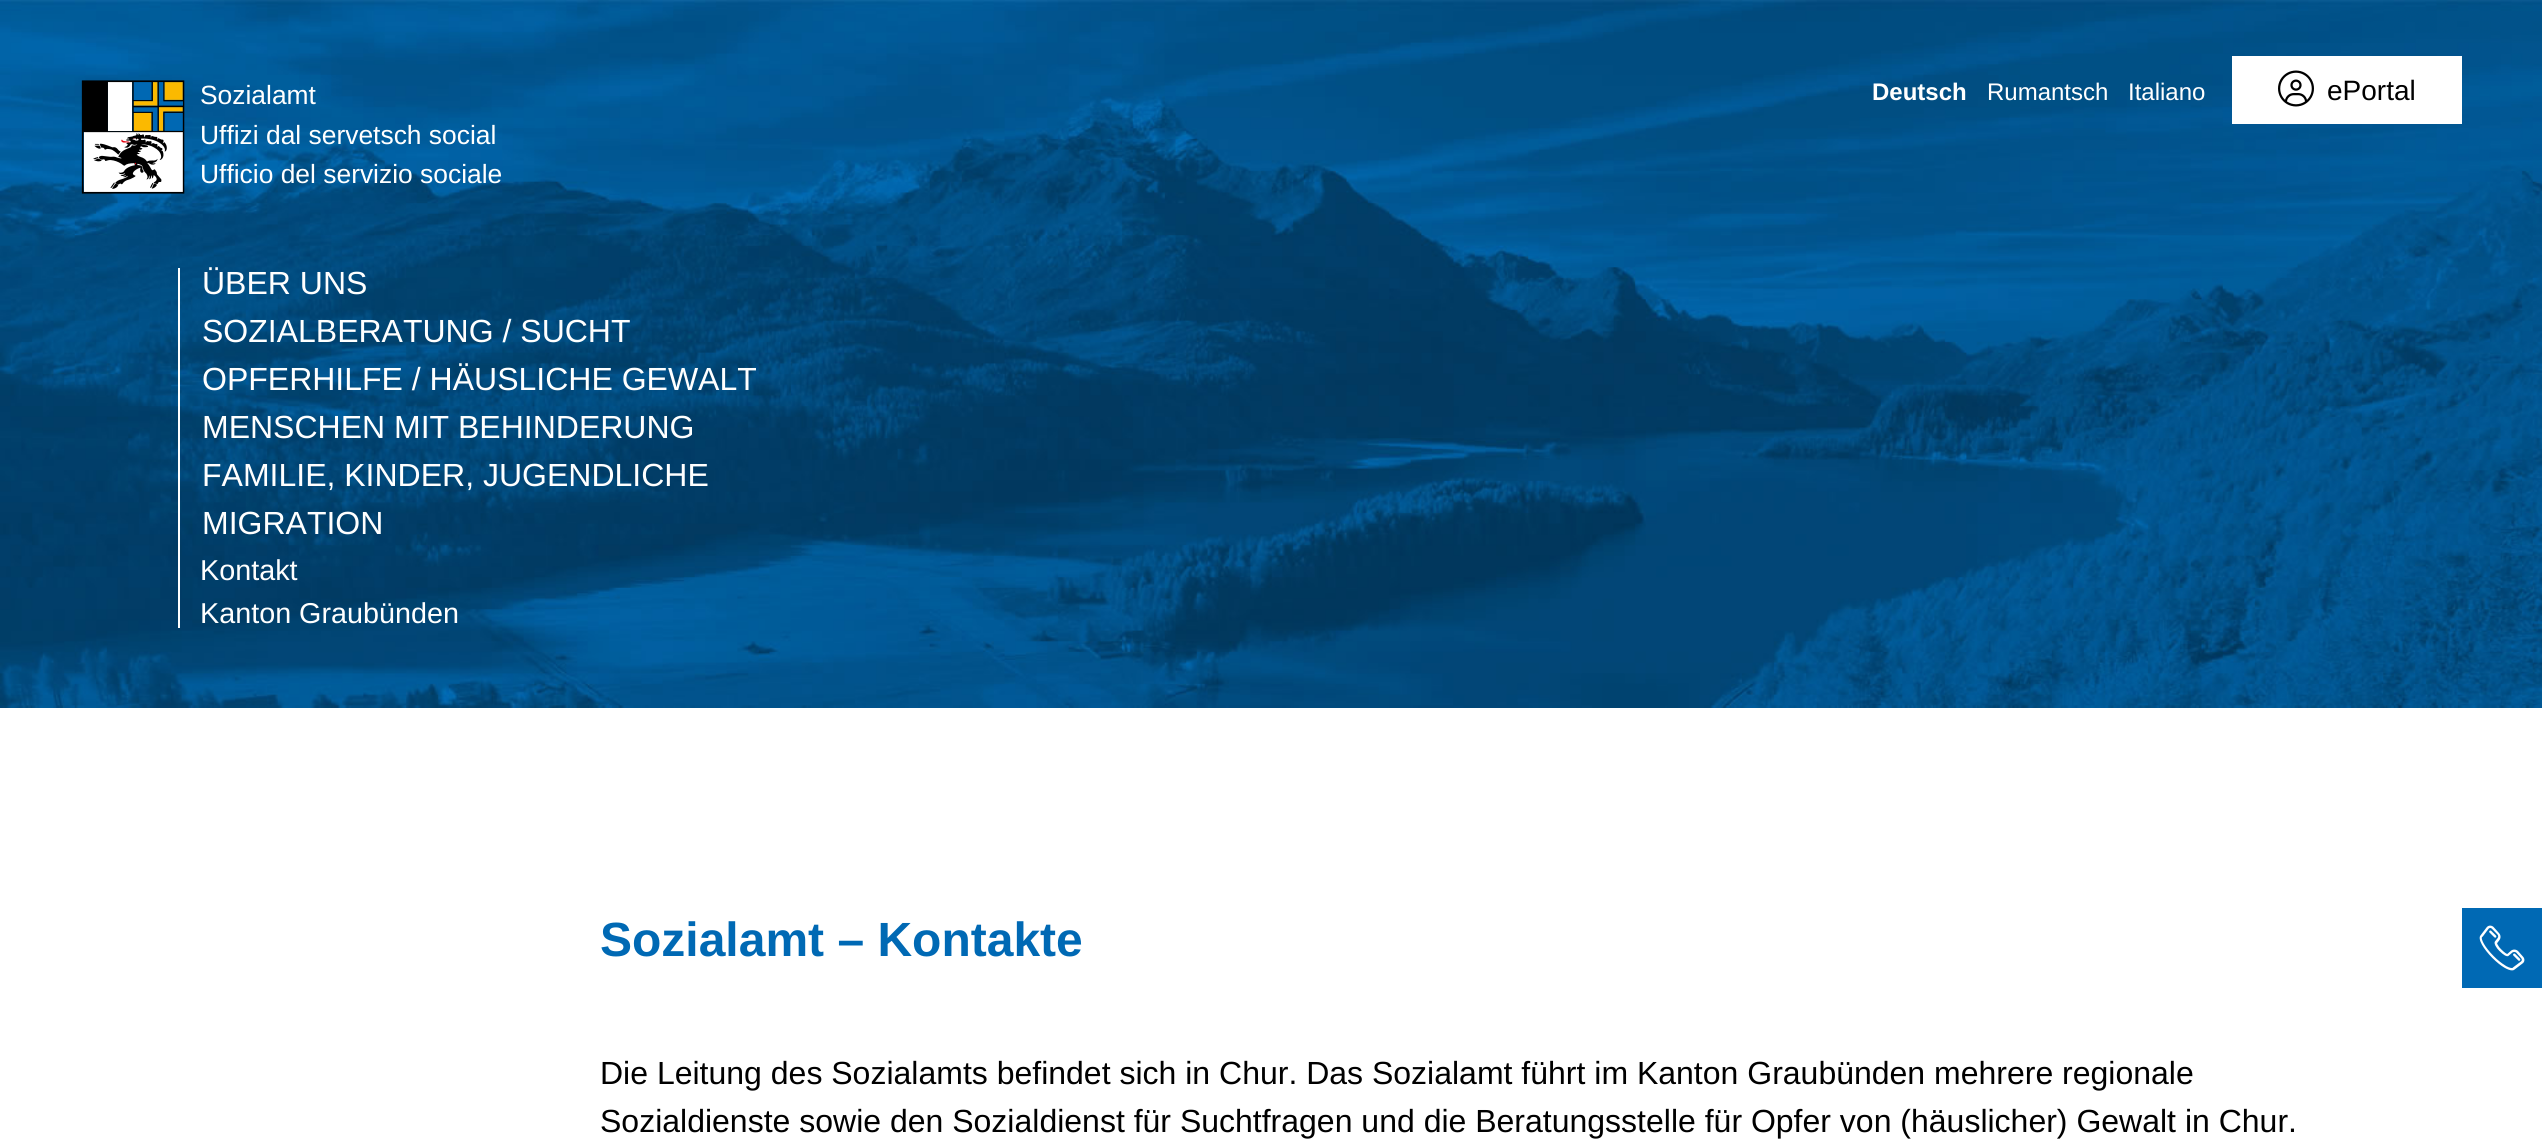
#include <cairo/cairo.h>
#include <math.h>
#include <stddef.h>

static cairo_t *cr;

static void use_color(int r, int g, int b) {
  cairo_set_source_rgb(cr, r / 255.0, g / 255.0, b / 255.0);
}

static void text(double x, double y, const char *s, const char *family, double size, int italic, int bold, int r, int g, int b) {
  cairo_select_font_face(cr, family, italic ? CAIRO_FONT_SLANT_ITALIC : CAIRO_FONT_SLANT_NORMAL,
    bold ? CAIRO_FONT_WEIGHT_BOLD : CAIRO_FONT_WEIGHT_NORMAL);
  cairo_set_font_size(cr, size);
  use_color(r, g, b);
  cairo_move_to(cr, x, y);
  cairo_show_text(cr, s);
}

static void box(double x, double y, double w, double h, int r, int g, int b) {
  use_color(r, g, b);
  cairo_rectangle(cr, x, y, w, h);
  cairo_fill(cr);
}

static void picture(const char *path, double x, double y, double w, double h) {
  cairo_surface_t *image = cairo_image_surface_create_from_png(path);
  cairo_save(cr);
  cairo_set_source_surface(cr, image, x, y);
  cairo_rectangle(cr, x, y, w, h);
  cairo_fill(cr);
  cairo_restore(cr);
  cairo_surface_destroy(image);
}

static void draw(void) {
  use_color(255, 255, 255);
  cairo_paint(cr);
  picture("img_01.png", 0, 0, 2542, 708);
  picture("img_02.png", 81, 80, 104, 114);
  box(2232, 56, 230, 68, 255, 255, 255);
  picture("img_03.png", 2278, 70, 36, 37);
  box(178, 268, 2, 360, 255, 255, 255);
  box(2462, 908, 80, 80, 0, 105, 180);
  picture("img_04.png", 2479, 925, 46, 46);
  text(200, 104, "Sozialamt", "Liberation Sans", 26.4, 0, 0, 255, 255, 255);
  text(200, 144, "Uffizi dal servetsch social", "Liberation Sans", 26.4, 0, 0, 255, 255, 255);
  text(200, 183, "Ufficio del servizio sociale", "Liberation Sans", 26.4, 0, 0, 255, 255, 255);
  text(1872, 100, "Deutsch", "Liberation Sans", 24, 0, 1, 255, 255, 255);
  text(1987, 100, "Rumantsch", "Liberation Sans", 24, 0, 0, 255, 255, 255);
  text(2128, 100, "Italiano", "Liberation Sans", 24, 0, 0, 255, 255, 255);
  text(2327, 100, "ePortal", "Liberation Sans", 28, 0, 0, 0, 0, 0);
  text(202, 294, "ÜBER UNS", "Liberation Sans", 32, 0, 0, 255, 255, 255);
  text(202, 342, "SOZIALBERATUNG / SUCHT", "Liberation Sans", 32, 0, 0, 255, 255, 255);
  text(202, 390, "OPFERHILFE / HÄUSLICHE GEWALT", "Liberation Sans", 32, 0, 0, 255, 255, 255);
  text(202, 438, "MENSCHEN MIT BEHINDERUNG", "Liberation Sans", 32, 0, 0, 255, 255, 255);
  text(202, 486, "FAMILIE, KINDER, JUGENDLICHE", "Liberation Sans", 32, 0, 0, 255, 255, 255);
  text(202, 534, "MIGRATION", "Liberation Sans", 32, 0, 0, 255, 255, 255);
  text(200, 580, "Kontakt", "Liberation Sans", 28.75, 0, 0, 255, 255, 255);
  text(200, 623, "Kanton Graubünden", "Liberation Sans", 28.75, 0, 0, 255, 255, 255);
  text(600, 956, "Sozialamt – Kontakte", "Liberation Sans", 48, 0, 1, 0, 105, 180);
  text(600, 1084, "Die Leitung des Sozialamts befindet sich in Chur. Das Sozialamt führt im Kanton Graubünden mehrere regionale", "Liberation Sans", 32, 0, 0, 0, 0, 0);
  text(600, 1132, "Sozialdienste sowie den Sozialdienst für Suchtfragen und die Beratungsstelle für Opfer von (häuslicher) Gewalt in Chur.", "Liberation Sans", 32, 0, 0, 0, 0, 0);
}

int main(void) {
  cairo_surface_t *surface = cairo_image_surface_create(CAIRO_FORMAT_RGB24, 2542, 1146);
  cr = cairo_create(surface);
  cairo_font_options_t *options = cairo_font_options_create();
  cairo_font_options_set_hint_metrics(options, CAIRO_HINT_METRICS_OFF);
  cairo_font_options_set_hint_style(options, CAIRO_HINT_STYLE_NONE);
  cairo_set_font_options(cr, options);
  cairo_set_miter_limit(cr, 4);
  draw();
  cairo_surface_write_to_png(surface, "out.png");
  cairo_font_options_destroy(options);
  cairo_destroy(cr);
  cairo_surface_destroy(surface);
  return 0;
}
